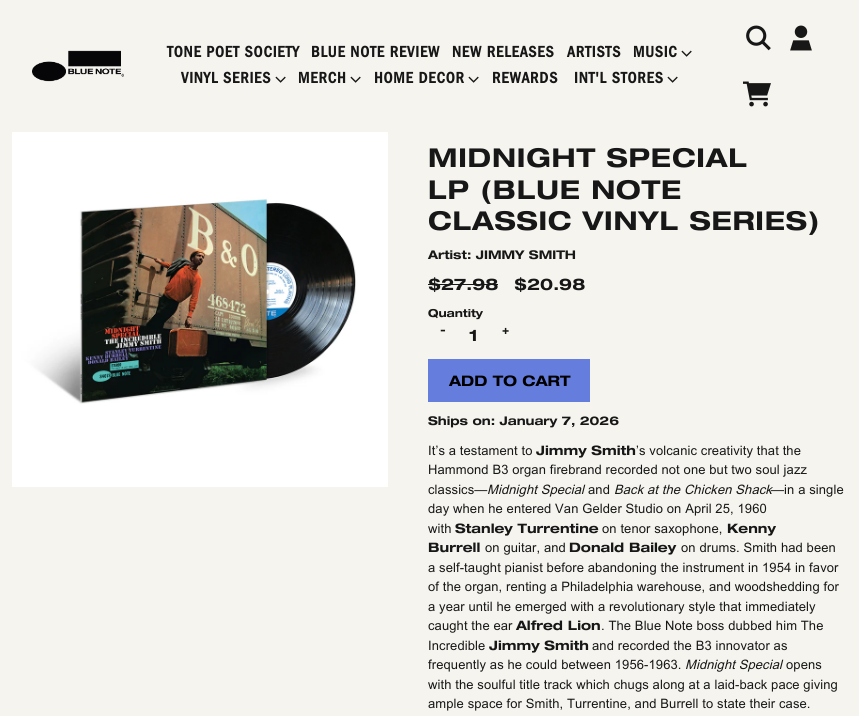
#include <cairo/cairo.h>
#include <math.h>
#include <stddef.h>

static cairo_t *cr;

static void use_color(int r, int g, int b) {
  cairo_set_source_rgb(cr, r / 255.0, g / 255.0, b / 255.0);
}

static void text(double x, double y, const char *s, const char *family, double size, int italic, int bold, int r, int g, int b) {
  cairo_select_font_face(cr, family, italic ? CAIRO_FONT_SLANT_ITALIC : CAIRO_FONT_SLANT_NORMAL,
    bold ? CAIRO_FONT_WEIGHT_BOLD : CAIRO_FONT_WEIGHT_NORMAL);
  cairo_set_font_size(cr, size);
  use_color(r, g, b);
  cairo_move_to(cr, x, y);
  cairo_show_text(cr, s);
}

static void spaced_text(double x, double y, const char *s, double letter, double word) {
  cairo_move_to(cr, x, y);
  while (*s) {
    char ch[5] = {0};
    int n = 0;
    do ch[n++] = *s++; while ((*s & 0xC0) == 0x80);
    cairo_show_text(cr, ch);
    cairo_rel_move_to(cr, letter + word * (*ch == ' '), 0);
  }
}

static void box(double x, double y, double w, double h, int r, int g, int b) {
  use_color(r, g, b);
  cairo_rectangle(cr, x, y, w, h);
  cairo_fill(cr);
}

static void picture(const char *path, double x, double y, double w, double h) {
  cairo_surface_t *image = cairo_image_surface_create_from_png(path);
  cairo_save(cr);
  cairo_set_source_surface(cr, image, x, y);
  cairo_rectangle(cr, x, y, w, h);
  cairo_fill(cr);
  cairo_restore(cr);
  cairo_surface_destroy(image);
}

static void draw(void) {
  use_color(245, 244, 239);
  cairo_paint(cr);
  picture("img_01.png", 32, 50, 92, 32);
  picture("img_02.png", 681, 50, 11, 7);
  picture("img_02.png", 275, 76, 11, 7);
  picture("img_02.png", 350, 76, 11, 7);
  picture("img_02.png", 468, 76, 11, 7);
  picture("img_02.png", 667, 76, 11, 7);
  picture("img_03.png", 746, 25, 25, 26);
  picture("img_04.png", 790, 25, 22, 26);
  picture("img_05.png", 743, 81, 28, 26);
  picture("img_06.png", 12, 132, 376, 355);
  box(428, 284, 70, 1, 23, 23, 23);
  use_color(101, 125, 220);
  cairo_rectangle(cr, 428.5, 359.5, 161, 42);
  cairo_fill_preserve(cr);
  cairo_set_line_width(cr, 1);
  cairo_stroke(cr);
  cairo_select_font_face(cr, "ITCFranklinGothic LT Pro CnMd", CAIRO_FONT_SLANT_NORMAL, CAIRO_FONT_WEIGHT_BOLD);
  cairo_set_font_size(cr, 16);
  use_color(23, 23, 23);
  spaced_text(167, 57, "TONE POET SOCIETY", 0.8, 0);
  spaced_text(311, 57, "BLUE NOTE REVIEW", 0.8, 0);
  spaced_text(452, 57, "NEW RELEASES", 0.8, 0);
  spaced_text(567, 57, "ARTISTS", 0.8, 0);
  spaced_text(633, 57, "MUSIC", 0.8, 0);
  spaced_text(181, 83, "VINYL SERIES", 0.8, 0);
  spaced_text(298, 83, "MERCH", 0.8, 0);
  spaced_text(374, 83, "HOME DECOR", 0.8, 0);
  spaced_text(492, 83, "REWARDS", 0.8, 0);
  spaced_text(574, 83, "INT'L STORES", 0.8, 0);
  cairo_select_font_face(cr, "Helvetica Neue", CAIRO_FONT_SLANT_NORMAL, CAIRO_FONT_WEIGHT_BOLD);
  cairo_set_font_size(cr, 26);
  spaced_text(428, 167, "MIDNIGHT SPECIAL", 0.8, 0);
  spaced_text(428, 199, "LP (BLUE NOTE", 0.8, 0);
  spaced_text(428, 230, "CLASSIC VINYL SERIES)", 0.8, 0);
  text(428, 259, "Artist: JIMMY SMITH", "Helvetica Neue", 12, 0, 1, 23, 23, 23);
  text(428, 290, "$27.98", "Helvetica Neue", 16, 0, 1, 23, 23, 23);
  text(514, 290, "$20.98", "Helvetica Neue", 16, 0, 1, 23, 23, 23);
  text(428, 317, "Quantity", "Helvetica Neue", 11, 0, 1, 23, 23, 23);
  text(440, 334, "-", "Helvetica Neue", 12, 0, 1, 23, 23, 23);
  text(469, 341, "1", "Helvetica Neue", 16, 0, 1, 23, 23, 23);
  text(502, 334, "+", "Helvetica Neue", 12, 0, 1, 23, 23, 23);
  text(449, 386, "ADD TO CART", "Helvetica Neue", 14.5, 0, 1, 0, 0, 0);
  text(428, 425, "Ships on: January 7, 2026", "Helvetica Neue", 12, 0, 1, 23, 23, 23);
  cairo_select_font_face(cr, "Arial", CAIRO_FONT_SLANT_NORMAL, CAIRO_FONT_WEIGHT_NORMAL);
  cairo_set_font_size(cr, 13);
  spaced_text(428, 455, "It’s a testament to", 0.1, 0);
  text(536, 455, "Jimmy Smith", "Helvetica Neue", 13, 0, 1, 23, 23, 23);
  cairo_select_font_face(cr, "Arial", CAIRO_FONT_SLANT_NORMAL, CAIRO_FONT_WEIGHT_NORMAL);
  spaced_text(636, 455, "’s volcanic creativity that the", 0.1, 0);
  spaced_text(428, 474, "Hammond B3 organ firebrand recorded not one but two soul jazz", 0.1, 0);
  spaced_text(428, 494, "classics—", 0.1, 0);
  cairo_select_font_face(cr, "Arial", CAIRO_FONT_SLANT_ITALIC, CAIRO_FONT_WEIGHT_NORMAL);
  spaced_text(487, 494, "Midnight Special", 0.1, 0);
  cairo_select_font_face(cr, "Arial", CAIRO_FONT_SLANT_NORMAL, CAIRO_FONT_WEIGHT_NORMAL);
  spaced_text(588, 494, "and", 0.1, 0);
  cairo_select_font_face(cr, "Arial", CAIRO_FONT_SLANT_ITALIC, CAIRO_FONT_WEIGHT_NORMAL);
  spaced_text(614, 494, "Back at the Chicken Shack", 0.1, 0);
  cairo_select_font_face(cr, "Arial", CAIRO_FONT_SLANT_NORMAL, CAIRO_FONT_WEIGHT_NORMAL);
  spaced_text(771, 494, "—in a single", 0.1, 0);
  spaced_text(428, 513, "day when he entered Van Gelder Studio on April 25, 1960", 0.1, 0);
  spaced_text(428, 533, "with", 0.1, 0);
  text(455, 533, "Stanley Turrentine", "Helvetica Neue", 13, 0, 1, 23, 23, 23);
  cairo_select_font_face(cr, "Arial", CAIRO_FONT_SLANT_NORMAL, CAIRO_FONT_WEIGHT_NORMAL);
  spaced_text(602, 533, "on tenor saxophone,", 0.1, 0);
  text(727, 533, "Kenny", "Helvetica Neue", 13, 0, 1, 23, 23, 23);
  text(428, 552, "Burrell", "Helvetica Neue", 13, 0, 1, 23, 23, 23);
  cairo_select_font_face(cr, "Arial", CAIRO_FONT_SLANT_NORMAL, CAIRO_FONT_WEIGHT_NORMAL);
  spaced_text(485, 552, "on guitar, and", 0.1, 0);
  text(569, 552, "Donald Bailey", "Helvetica Neue", 13, 0, 1, 23, 23, 23);
  cairo_select_font_face(cr, "Arial", CAIRO_FONT_SLANT_NORMAL, CAIRO_FONT_WEIGHT_NORMAL);
  spaced_text(681, 552, "on drums. Smith had been", 0.1, 0);
  spaced_text(428, 572, "a self-taught pianist before abandoning the instrument in 1954 in favor", 0.1, 0);
  spaced_text(428, 591, "of the organ, renting a Philadelphia warehouse, and woodshedding for", 0.1, 0);
  spaced_text(428, 611, "a year until he emerged with a revolutionary style that immediately", 0.1, 0);
  spaced_text(428, 630, "caught the ear", 0.1, 0);
  text(516, 630, "Alfred Lion", "Helvetica Neue", 13, 0, 1, 23, 23, 23);
  cairo_select_font_face(cr, "Arial", CAIRO_FONT_SLANT_NORMAL, CAIRO_FONT_WEIGHT_NORMAL);
  spaced_text(601, 630, ". The Blue Note boss dubbed him The", 0.1, 0);
  spaced_text(428, 650, "Incredible", 0.1, 0);
  text(489, 650, "Jimmy Smith", "Helvetica Neue", 13, 0, 1, 23, 23, 23);
  cairo_select_font_face(cr, "Arial", CAIRO_FONT_SLANT_NORMAL, CAIRO_FONT_WEIGHT_NORMAL);
  spaced_text(592, 650, "and recorded the B3 innovator as", 0.1, 0);
  spaced_text(428, 669, "frequently as he could between 1956-1963.", 0.1, 0);
  cairo_select_font_face(cr, "Arial", CAIRO_FONT_SLANT_ITALIC, CAIRO_FONT_WEIGHT_NORMAL);
  spaced_text(685, 669, "Midnight Special", 0.1, 0);
  cairo_select_font_face(cr, "Arial", CAIRO_FONT_SLANT_NORMAL, CAIRO_FONT_WEIGHT_NORMAL);
  spaced_text(786, 669, "opens", 0.1, 0);
  spaced_text(428, 689, "with the soulful title track which chugs along at a laid-back pace giving", 0.1, 0);
  spaced_text(428, 708, "ample space for Smith, Turrentine, and Burrell to state their case.", 0.1, 0);
}

int main(void) {
  cairo_surface_t *surface = cairo_image_surface_create(CAIRO_FORMAT_RGB24, 859, 716);
  cr = cairo_create(surface);
  cairo_font_options_t *options = cairo_font_options_create();
  cairo_font_options_set_hint_metrics(options, CAIRO_HINT_METRICS_OFF);
  cairo_font_options_set_hint_style(options, CAIRO_HINT_STYLE_NONE);
  cairo_set_font_options(cr, options);
  cairo_set_miter_limit(cr, 4);
  draw();
  cairo_surface_write_to_png(surface, "out.png");
  cairo_font_options_destroy(options);
  cairo_destroy(cr);
  cairo_surface_destroy(surface);
  return 0;
}
